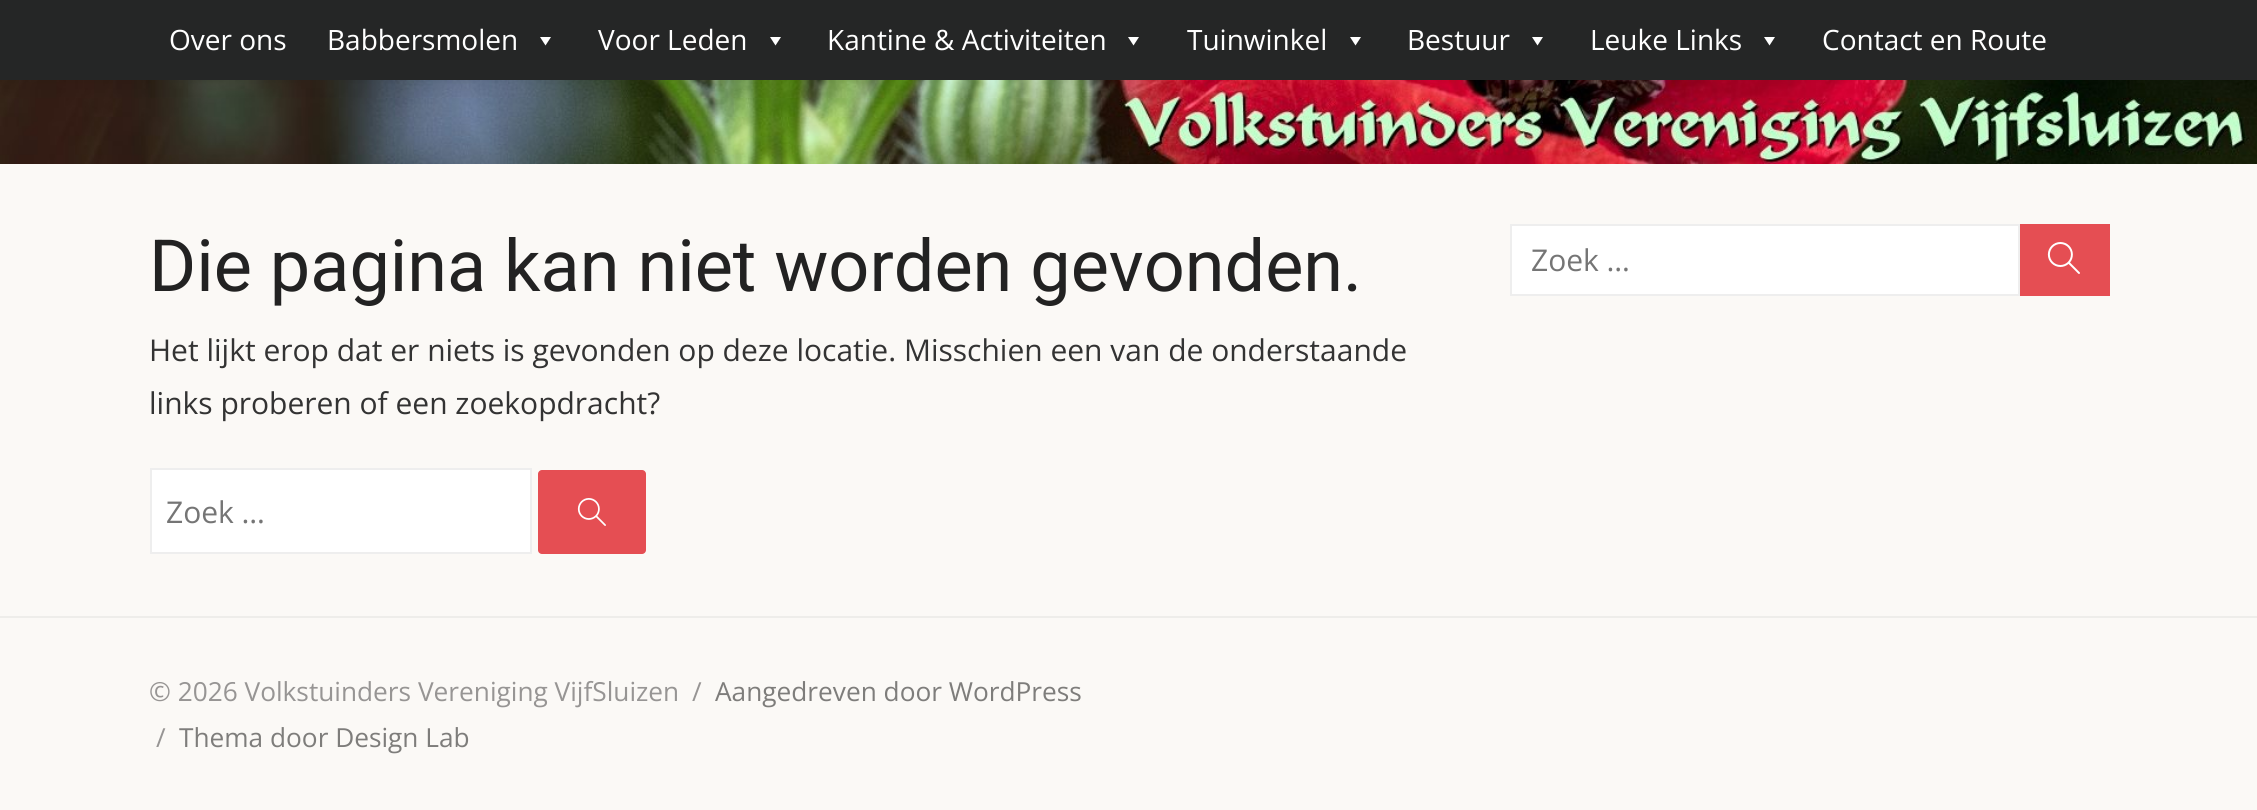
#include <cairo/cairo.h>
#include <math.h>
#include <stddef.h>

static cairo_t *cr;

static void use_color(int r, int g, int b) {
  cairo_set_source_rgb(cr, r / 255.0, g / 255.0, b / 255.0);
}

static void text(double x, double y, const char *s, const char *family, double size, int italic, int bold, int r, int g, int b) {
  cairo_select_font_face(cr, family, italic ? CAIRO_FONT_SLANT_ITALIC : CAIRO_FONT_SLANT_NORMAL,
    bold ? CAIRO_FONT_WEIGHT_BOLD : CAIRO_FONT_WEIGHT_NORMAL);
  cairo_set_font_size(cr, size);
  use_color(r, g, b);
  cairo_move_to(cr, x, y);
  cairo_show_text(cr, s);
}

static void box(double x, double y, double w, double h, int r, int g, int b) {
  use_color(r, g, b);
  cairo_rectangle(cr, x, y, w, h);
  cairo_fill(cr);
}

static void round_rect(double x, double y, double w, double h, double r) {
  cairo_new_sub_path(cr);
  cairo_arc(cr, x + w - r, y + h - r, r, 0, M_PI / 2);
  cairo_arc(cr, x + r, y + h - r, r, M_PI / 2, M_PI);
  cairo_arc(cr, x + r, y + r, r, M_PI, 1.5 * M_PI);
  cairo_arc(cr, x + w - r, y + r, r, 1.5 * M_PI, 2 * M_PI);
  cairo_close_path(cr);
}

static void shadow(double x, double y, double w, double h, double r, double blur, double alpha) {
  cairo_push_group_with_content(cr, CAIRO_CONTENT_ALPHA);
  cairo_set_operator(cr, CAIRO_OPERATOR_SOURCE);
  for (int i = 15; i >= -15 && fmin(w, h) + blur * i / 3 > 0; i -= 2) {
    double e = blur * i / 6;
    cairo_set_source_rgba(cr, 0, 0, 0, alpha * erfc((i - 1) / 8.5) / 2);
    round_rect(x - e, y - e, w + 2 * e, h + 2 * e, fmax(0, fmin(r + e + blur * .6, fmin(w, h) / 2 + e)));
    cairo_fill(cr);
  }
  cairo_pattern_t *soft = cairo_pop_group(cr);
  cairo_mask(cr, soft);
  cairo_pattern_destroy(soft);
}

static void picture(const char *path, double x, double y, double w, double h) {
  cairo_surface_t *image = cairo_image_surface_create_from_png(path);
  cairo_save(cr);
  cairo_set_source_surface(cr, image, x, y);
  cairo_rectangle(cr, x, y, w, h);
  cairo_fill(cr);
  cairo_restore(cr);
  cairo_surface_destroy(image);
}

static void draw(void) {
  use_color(251, 249, 246);
  cairo_paint(cr);
  picture("img_01.png", 0, 80, 2257, 84);
  use_color(0, 0, 0);
  shadow(0, 0, 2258, 80, 0, 20, 0.07);
  box(0, 0, 2257, 80, 37, 38, 38);
  use_color(255, 255, 255);
  cairo_new_path(cr);
  cairo_move_to(cr, 551, 37);
  cairo_line_to(cr, 545.5, 45.5);
  cairo_line_to(cr, 540, 37);
  cairo_close_path(cr);
  cairo_fill(cr);
  cairo_new_path(cr);
  cairo_move_to(cr, 781, 37);
  cairo_line_to(cr, 775.5, 45.5);
  cairo_line_to(cr, 770, 37);
  cairo_close_path(cr);
  cairo_fill(cr);
  cairo_new_path(cr);
  cairo_move_to(cr, 1139, 37);
  cairo_line_to(cr, 1133.5, 45.5);
  cairo_line_to(cr, 1128, 37);
  cairo_close_path(cr);
  cairo_fill(cr);
  cairo_new_path(cr);
  cairo_move_to(cr, 1361, 37);
  cairo_line_to(cr, 1355.5, 45.5);
  cairo_line_to(cr, 1350, 37);
  cairo_close_path(cr);
  cairo_fill(cr);
  cairo_new_path(cr);
  cairo_move_to(cr, 1543, 37);
  cairo_line_to(cr, 1537.5, 45.5);
  cairo_line_to(cr, 1532, 37);
  cairo_close_path(cr);
  cairo_fill(cr);
  cairo_new_path(cr);
  cairo_move_to(cr, 1775, 37);
  cairo_line_to(cr, 1769.5, 45.5);
  cairo_line_to(cr, 1764, 37);
  cairo_close_path(cr);
  cairo_fill(cr);
  cairo_rectangle(cr, 151, 469, 380, 84);
  cairo_fill_preserve(cr);
  use_color(238, 238, 238);
  cairo_stroke(cr);
  use_color(229, 78, 83);
  round_rect(538, 470, 108, 84, 4);
  cairo_fill(cr);
  picture("img_02.png", 577, 498, 29, 28);
  use_color(255, 255, 255);
  cairo_rectangle(cr, 1511, 225, 508, 70);
  cairo_fill_preserve(cr);
  use_color(238, 238, 238);
  cairo_stroke(cr);
  box(2020, 224, 90, 72, 229, 78, 83);
  picture("img_03.png", 2047, 242, 33, 32);
  box(0, 616, 2257, 2, 238, 237, 234);
  text(169, 50, "Over ons", "Open Sans", 28, 0, 0, 255, 255, 255);
  text(327, 50, "Babbersmolen", "Open Sans", 28, 0, 0, 255, 255, 255);
  text(598, 50, "Voor Leden", "Open Sans", 28, 0, 0, 255, 255, 255);
  text(827, 50, "Kantine & Activiteiten", "Open Sans", 28, 0, 0, 255, 255, 255);
  text(1187, 50, "Tuinwinkel", "Open Sans", 28, 0, 0, 255, 255, 255);
  text(1407, 50, "Bestuur", "Open Sans", 28, 0, 0, 255, 255, 255);
  text(1590, 50, "Leuke Links", "Open Sans", 28, 0, 0, 255, 255, 255);
  text(1822, 50, "Contact en Route", "Open Sans", 28, 0, 0, 255, 255, 255);
  text(149, 291, "Die pagina kan niet worden gevonden.", "Roboto", 72, 0, 0, 34, 34, 34);
  text(149, 361, "Het lijkt erop dat er niets is gevonden op deze locatie. Misschien een van de onderstaande", "Open Sans", 30, 0, 0, 51, 51, 51);
  text(149, 414, "links proberen of een zoekopdracht?", "Open Sans", 30, 0, 0, 51, 51, 51);
  text(166, 523, "Zoek …", "Open Sans", 30, 0, 0, 117, 117, 117);
  text(1531, 271, "Zoek …", "Open Sans", 30, 0, 0, 117, 117, 117);
  text(149, 701, "© 2026 Volkstuinders Vereniging VijfSluizen", "Open Sans", 26.25, 0, 0, 151, 149, 148);
  text(692, 701, "/", "Open Sans", 26.25, 0, 0, 151, 149, 148);
  text(715, 701, "Aangedreven door WordPress", "Open Sans", 26.25, 0, 0, 126, 125, 123);
  text(156, 747, "/", "Open Sans", 26.25, 0, 0, 151, 149, 148);
  text(179, 747, "Thema door Design Lab", "Open Sans", 26.25, 0, 0, 126, 125, 123);
}

int main(void) {
  cairo_surface_t *surface = cairo_image_surface_create(CAIRO_FORMAT_RGB24, 2257, 810);
  cr = cairo_create(surface);
  cairo_font_options_t *options = cairo_font_options_create();
  cairo_font_options_set_hint_metrics(options, CAIRO_HINT_METRICS_OFF);
  cairo_font_options_set_hint_style(options, CAIRO_HINT_STYLE_NONE);
  cairo_set_font_options(cr, options);
  cairo_set_miter_limit(cr, 4);
  draw();
  cairo_surface_write_to_png(surface, "out.png");
  cairo_font_options_destroy(options);
  cairo_destroy(cr);
  cairo_surface_destroy(surface);
  return 0;
}
